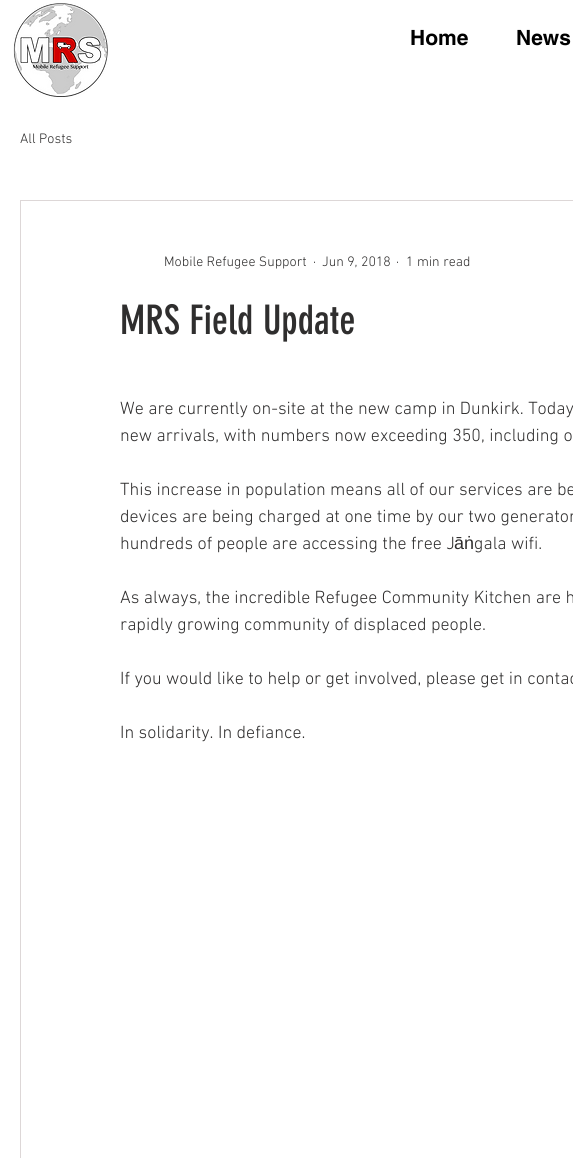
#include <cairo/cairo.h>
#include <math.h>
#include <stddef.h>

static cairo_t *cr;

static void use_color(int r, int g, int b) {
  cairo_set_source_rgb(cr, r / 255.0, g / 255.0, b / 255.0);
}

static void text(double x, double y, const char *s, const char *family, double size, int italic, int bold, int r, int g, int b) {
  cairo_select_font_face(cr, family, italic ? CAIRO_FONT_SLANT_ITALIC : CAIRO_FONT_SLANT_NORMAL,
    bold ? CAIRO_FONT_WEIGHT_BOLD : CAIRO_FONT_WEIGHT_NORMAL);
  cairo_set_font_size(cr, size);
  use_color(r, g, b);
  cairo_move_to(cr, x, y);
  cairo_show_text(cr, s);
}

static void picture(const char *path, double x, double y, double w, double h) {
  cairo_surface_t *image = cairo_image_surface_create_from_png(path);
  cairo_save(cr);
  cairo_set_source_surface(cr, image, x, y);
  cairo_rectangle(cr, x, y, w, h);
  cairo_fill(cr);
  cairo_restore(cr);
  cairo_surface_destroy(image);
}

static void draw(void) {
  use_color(255, 255, 255);
  cairo_paint(cr);
  picture("img_01.png", 13, 3, 95, 94);
  cairo_rectangle(cr, 20.5, 200.5, 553, 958);
  use_color(221, 215, 215);
  cairo_set_line_width(cr, 1);
  cairo_stroke(cr);
  text(410, 45, "Home", "helvetica", 21, 0, 1, 0, 0, 0);
  text(516, 45, "News", "helvetica", 21, 0, 1, 0, 0, 0);
  text(20, 143, "All Posts", "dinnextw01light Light", 14, 0, 0, 47, 46, 46);
  text(164, 266, "Mobile Refugee Support", "dinnextw01light Light", 14, 0, 0, 47, 46, 46);
  text(313, 266, "·", "dinnextw01light Light", 14, 0, 0, 47, 46, 46);
  text(322, 266, "Jun 9, 2018", "dinnextw01light Light", 14, 0, 0, 47, 46, 46);
  text(396, 266, "·", "dinnextw01light Light", 14, 0, 0, 47, 46, 46);
  text(406, 266, "1 min read", "dinnextw01light Light", 14, 0, 0, 47, 46, 46);
  text(120, 334, "MRS Field Update", "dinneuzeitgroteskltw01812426", 40, 0, 0, 47, 46, 46);
  text(120, 414, "We are currently on-site at the new camp in Dunkirk. Today", "dinnextw01light Light", 18, 0, 0, 47, 46, 46);
  text(120, 441, "new arrivals, with numbers now exceeding 350, including o", "dinnextw01light Light", 18, 0, 0, 47, 46, 46);
  text(120, 495, "This increase in population means all of our services are be", "dinnextw01light Light", 18, 0, 0, 47, 46, 46);
  text(120, 522, "devices are being charged at one time by our two generator", "dinnextw01light Light", 18, 0, 0, 47, 46, 46);
  text(120, 549, "hundreds of people are accessing the free J", "dinnextw01light Light", 18, 0, 0, 47, 46, 46);
  text(454, 549, "āṅ", "Liberation Sans", 18, 0, 0, 47, 46, 46);
  text(474, 549, "gala wifi.", "dinnextw01light Light", 18, 0, 0, 47, 46, 46);
  text(120, 603, "As always, the incredible Refugee Community Kitchen are h", "dinnextw01light Light", 18, 0, 0, 47, 46, 46);
  text(120, 630, "rapidly growing community of displaced people.", "dinnextw01light Light", 18, 0, 0, 47, 46, 46);
  text(120, 684, "If you would like to help or get involved, please get in contac", "dinnextw01light Light", 18, 0, 0, 47, 46, 46);
  text(120, 738, "In solidarity. In defiance.", "dinnextw01light Light", 18, 0, 0, 47, 46, 46);
}

int main(void) {
  cairo_surface_t *surface = cairo_image_surface_create(CAIRO_FORMAT_RGB24, 573, 1158);
  cr = cairo_create(surface);
  cairo_font_options_t *options = cairo_font_options_create();
  cairo_font_options_set_hint_metrics(options, CAIRO_HINT_METRICS_OFF);
  cairo_font_options_set_hint_style(options, CAIRO_HINT_STYLE_NONE);
  cairo_set_font_options(cr, options);
  cairo_set_miter_limit(cr, 4);
  draw();
  cairo_surface_write_to_png(surface, "out.png");
  cairo_font_options_destroy(options);
  cairo_destroy(cr);
  cairo_surface_destroy(surface);
  return 0;
}
